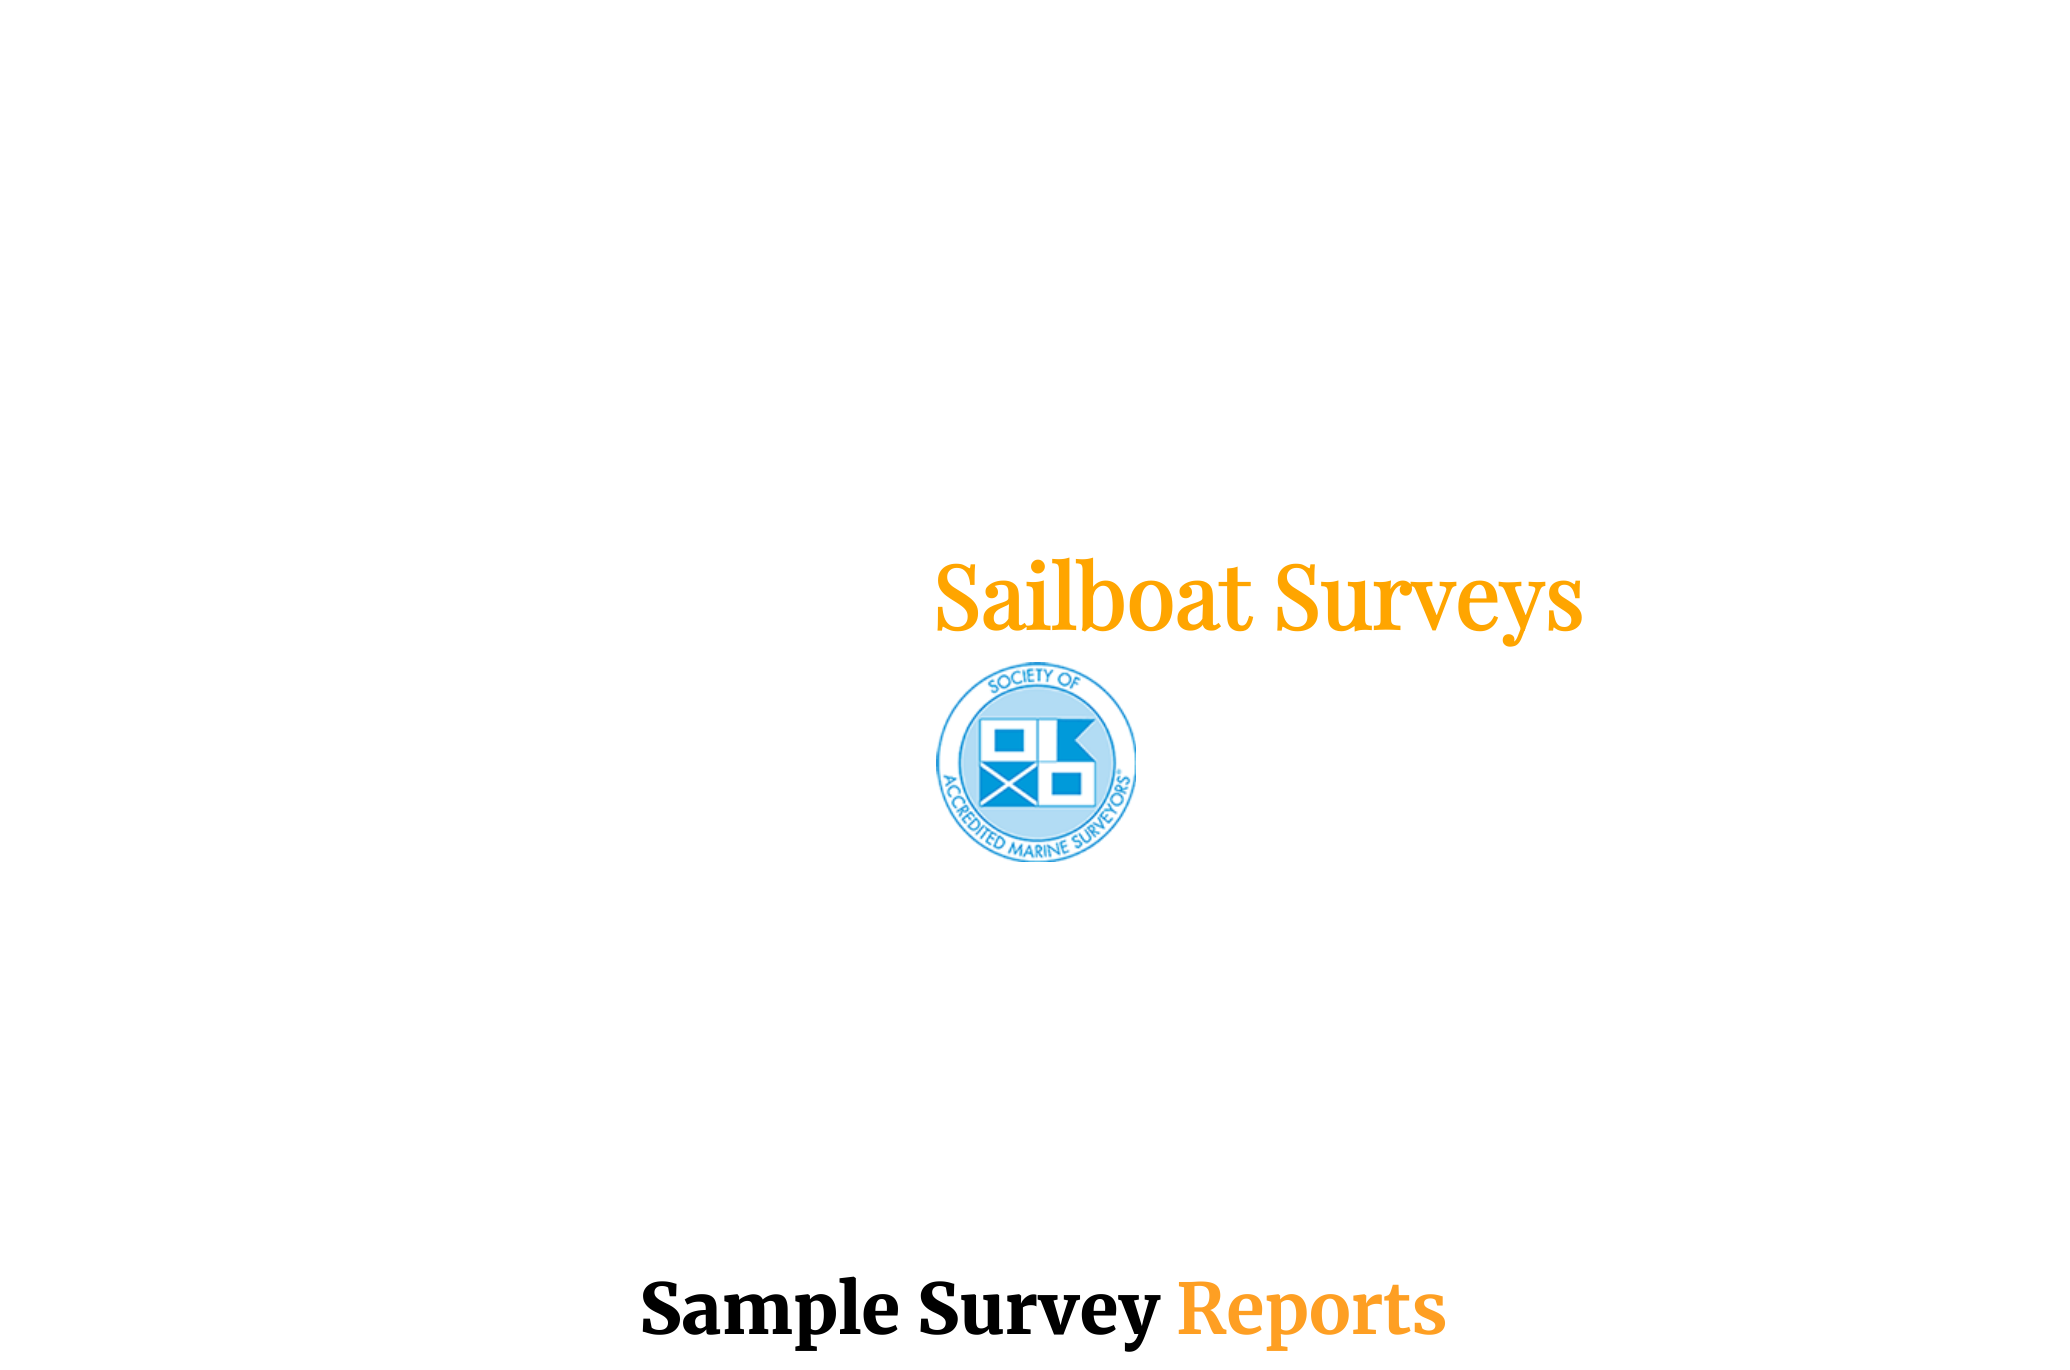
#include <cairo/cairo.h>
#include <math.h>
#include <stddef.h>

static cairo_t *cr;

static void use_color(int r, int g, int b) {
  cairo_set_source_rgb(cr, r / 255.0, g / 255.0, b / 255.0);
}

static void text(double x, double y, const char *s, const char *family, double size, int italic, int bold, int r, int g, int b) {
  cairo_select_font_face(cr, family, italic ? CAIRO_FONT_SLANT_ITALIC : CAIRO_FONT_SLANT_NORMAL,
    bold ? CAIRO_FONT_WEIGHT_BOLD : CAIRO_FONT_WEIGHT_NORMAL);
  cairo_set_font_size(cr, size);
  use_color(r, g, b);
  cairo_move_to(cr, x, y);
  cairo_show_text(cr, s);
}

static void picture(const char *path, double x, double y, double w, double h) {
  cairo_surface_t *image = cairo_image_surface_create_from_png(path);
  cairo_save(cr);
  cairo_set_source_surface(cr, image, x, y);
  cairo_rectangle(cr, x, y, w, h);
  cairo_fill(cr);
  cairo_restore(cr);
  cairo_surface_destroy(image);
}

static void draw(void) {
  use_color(255, 255, 255);
  cairo_paint(cr);
  picture("img_01.png", 936, 662, 200, 200);
  text(932, 630, "Sailboat Surveys", "Playfair Display", 88.75, 0, 1, 255, 165, 0);
  text(639, 1334, "Sample Survey", "Merriweather Black", 70, 0, 0, 0, 0, 0);
  text(1176, 1334, "Reports", "Merriweather", 70, 0, 1, 254, 159, 35);
}

int main(void) {
  cairo_surface_t *surface = cairo_image_surface_create(CAIRO_FORMAT_RGB24, 2070, 1370);
  cr = cairo_create(surface);
  cairo_font_options_t *options = cairo_font_options_create();
  cairo_font_options_set_hint_metrics(options, CAIRO_HINT_METRICS_OFF);
  cairo_font_options_set_hint_style(options, CAIRO_HINT_STYLE_NONE);
  cairo_set_font_options(cr, options);
  cairo_set_miter_limit(cr, 4);
  draw();
  cairo_surface_write_to_png(surface, "out.png");
  cairo_font_options_destroy(options);
  cairo_destroy(cr);
  cairo_surface_destroy(surface);
  return 0;
}
